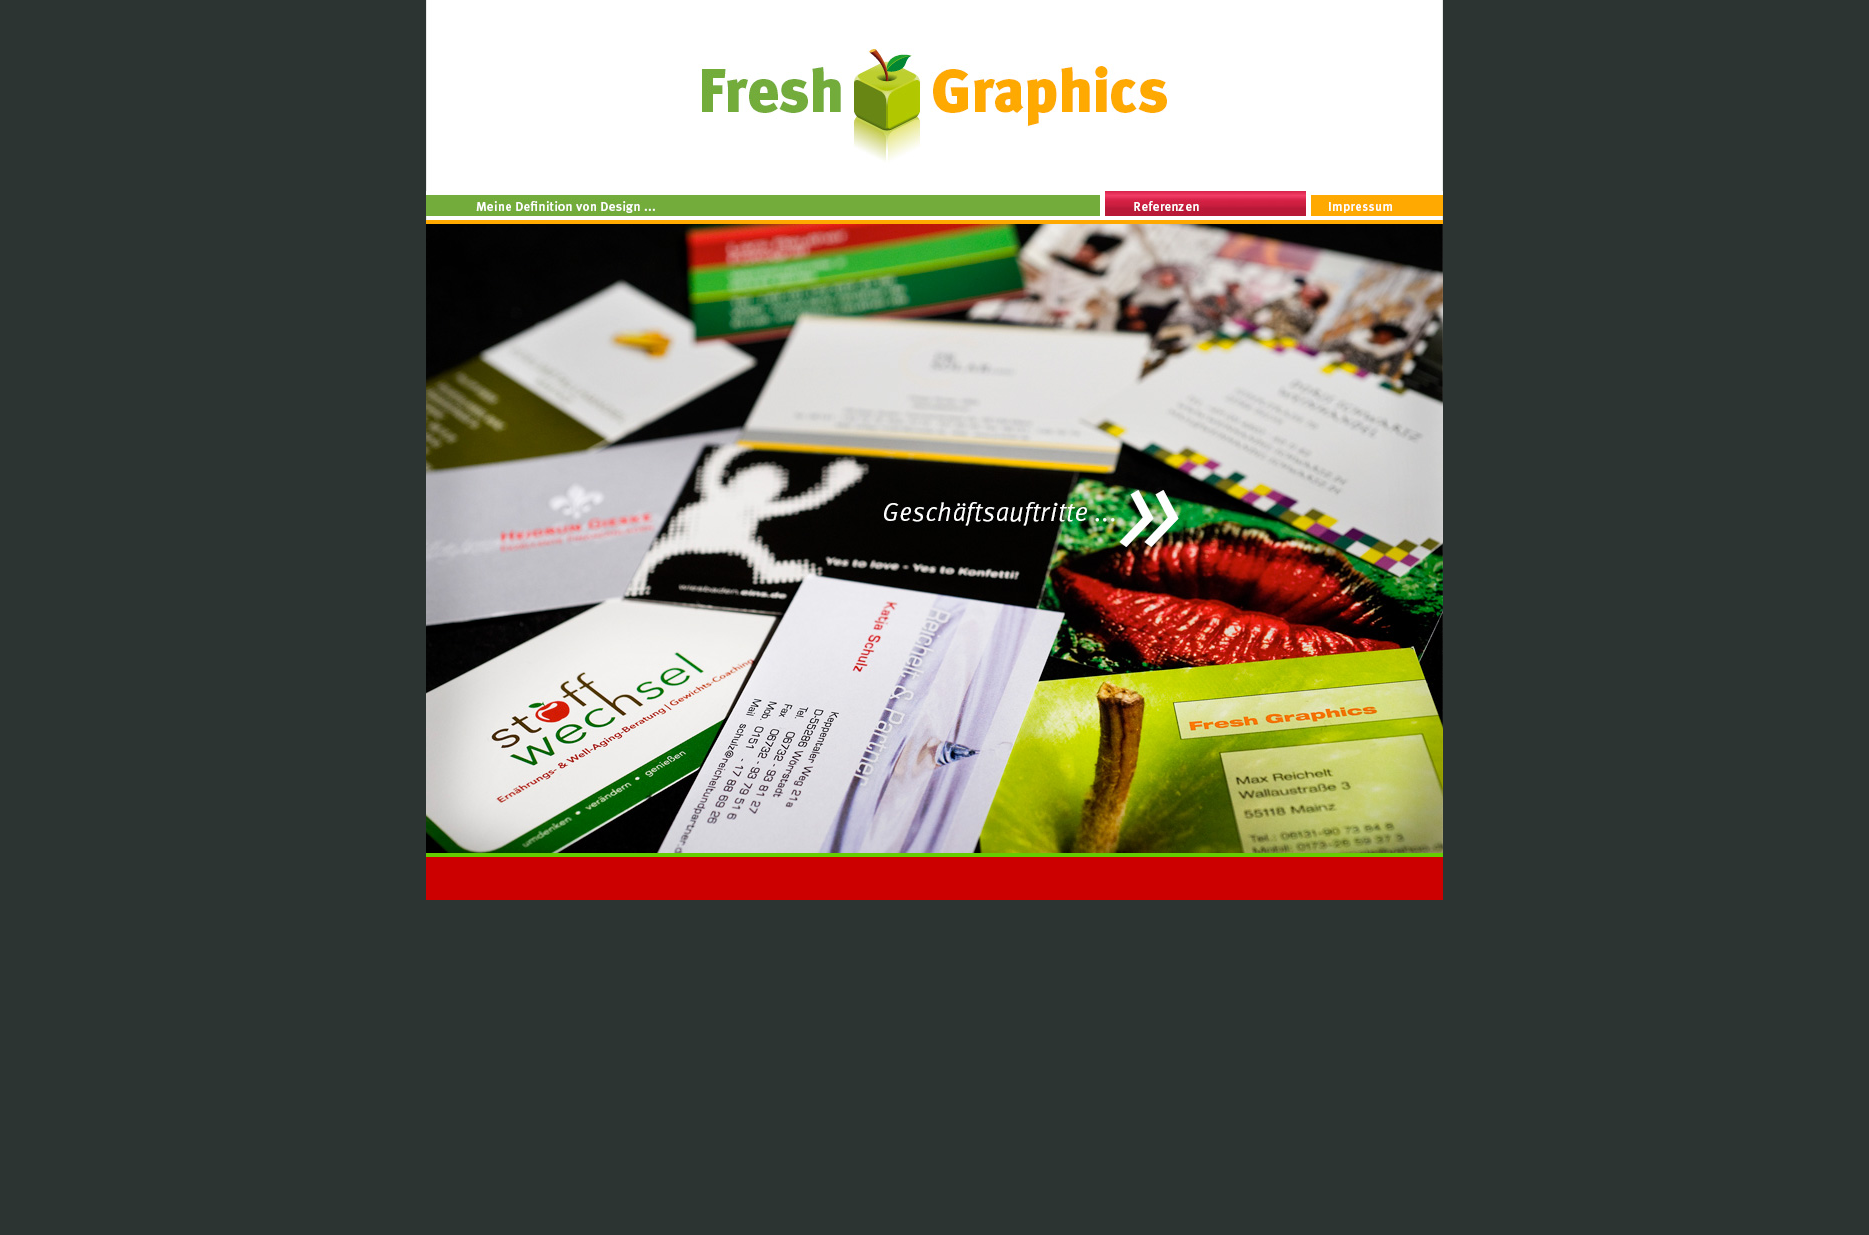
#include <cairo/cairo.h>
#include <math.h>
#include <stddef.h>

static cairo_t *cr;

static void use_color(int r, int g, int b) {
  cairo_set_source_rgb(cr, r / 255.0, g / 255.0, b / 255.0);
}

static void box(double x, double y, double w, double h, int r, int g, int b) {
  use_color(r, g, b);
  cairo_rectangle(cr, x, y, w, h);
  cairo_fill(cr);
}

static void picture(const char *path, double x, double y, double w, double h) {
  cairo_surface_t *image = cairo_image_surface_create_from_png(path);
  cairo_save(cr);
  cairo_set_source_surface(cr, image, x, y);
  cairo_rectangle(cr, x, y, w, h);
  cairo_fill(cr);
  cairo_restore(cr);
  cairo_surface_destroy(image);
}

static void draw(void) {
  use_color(44, 52, 50);
  cairo_paint(cr);
  box(426, 857, 1017, 43, 204, 0, 0);
  picture("img_01.png", 426, 0, 1017, 191);
  picture("img_02.png", 426, 191, 674, 25);
  picture("img_03.png", 1100, 191, 206, 25);
  picture("img_04.png", 1306, 191, 137, 25);
  picture("img_05.png", 426, 216, 1017, 637);
  box(426, 853, 1017, 4, 102, 204, 0);
}

int main(void) {
  cairo_surface_t *surface = cairo_image_surface_create(CAIRO_FORMAT_RGB24, 1869, 1235);
  cr = cairo_create(surface);
  cairo_font_options_t *options = cairo_font_options_create();
  cairo_font_options_set_hint_metrics(options, CAIRO_HINT_METRICS_OFF);
  cairo_font_options_set_hint_style(options, CAIRO_HINT_STYLE_NONE);
  cairo_set_font_options(cr, options);
  cairo_set_miter_limit(cr, 4);
  draw();
  cairo_surface_write_to_png(surface, "out.png");
  cairo_font_options_destroy(options);
  cairo_destroy(cr);
  cairo_surface_destroy(surface);
  return 0;
}
